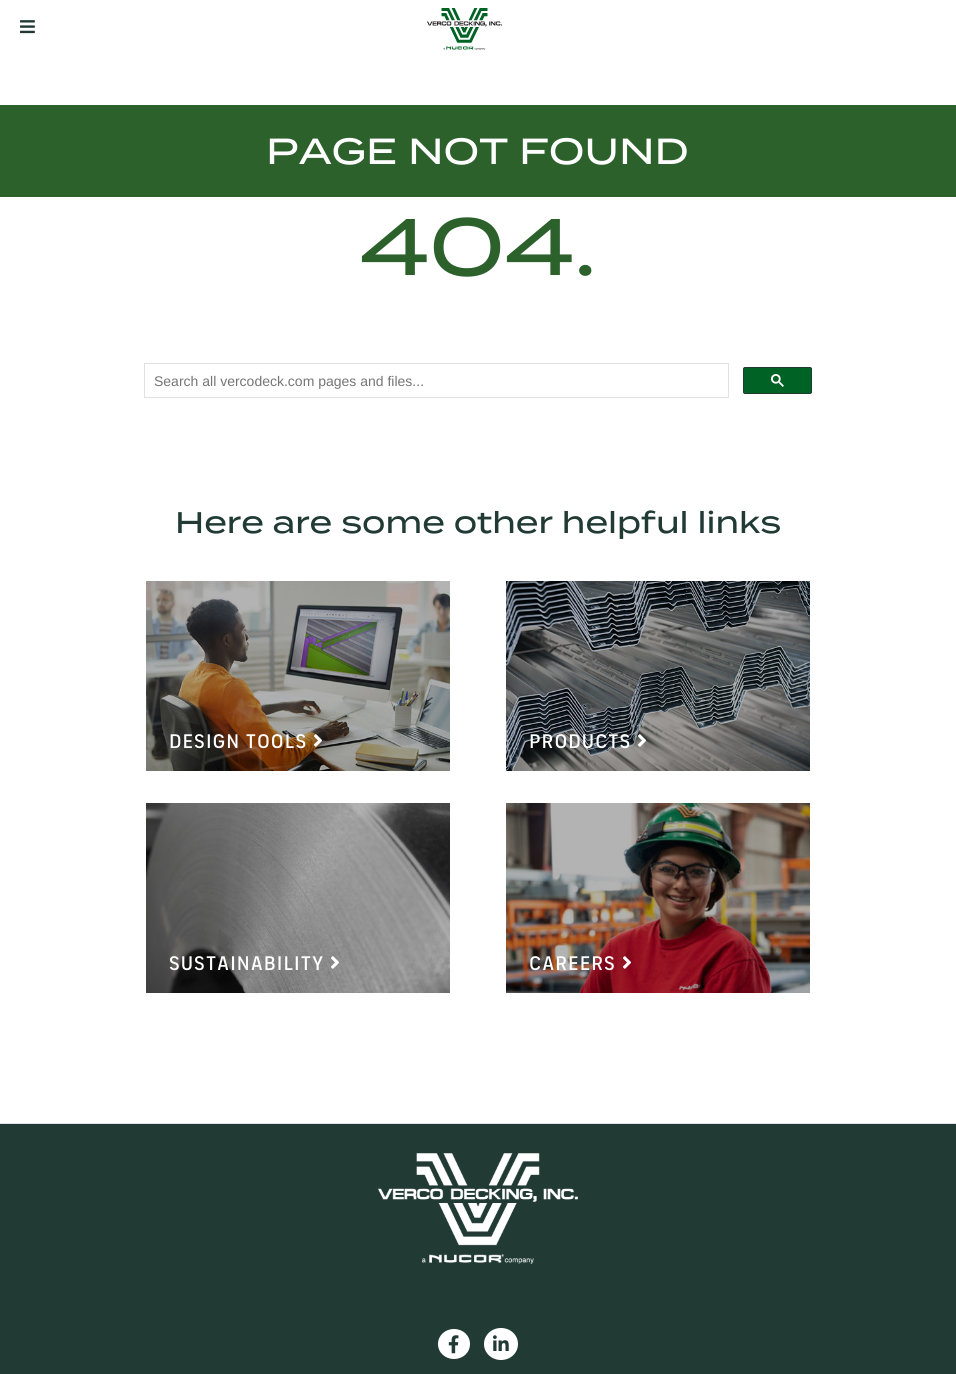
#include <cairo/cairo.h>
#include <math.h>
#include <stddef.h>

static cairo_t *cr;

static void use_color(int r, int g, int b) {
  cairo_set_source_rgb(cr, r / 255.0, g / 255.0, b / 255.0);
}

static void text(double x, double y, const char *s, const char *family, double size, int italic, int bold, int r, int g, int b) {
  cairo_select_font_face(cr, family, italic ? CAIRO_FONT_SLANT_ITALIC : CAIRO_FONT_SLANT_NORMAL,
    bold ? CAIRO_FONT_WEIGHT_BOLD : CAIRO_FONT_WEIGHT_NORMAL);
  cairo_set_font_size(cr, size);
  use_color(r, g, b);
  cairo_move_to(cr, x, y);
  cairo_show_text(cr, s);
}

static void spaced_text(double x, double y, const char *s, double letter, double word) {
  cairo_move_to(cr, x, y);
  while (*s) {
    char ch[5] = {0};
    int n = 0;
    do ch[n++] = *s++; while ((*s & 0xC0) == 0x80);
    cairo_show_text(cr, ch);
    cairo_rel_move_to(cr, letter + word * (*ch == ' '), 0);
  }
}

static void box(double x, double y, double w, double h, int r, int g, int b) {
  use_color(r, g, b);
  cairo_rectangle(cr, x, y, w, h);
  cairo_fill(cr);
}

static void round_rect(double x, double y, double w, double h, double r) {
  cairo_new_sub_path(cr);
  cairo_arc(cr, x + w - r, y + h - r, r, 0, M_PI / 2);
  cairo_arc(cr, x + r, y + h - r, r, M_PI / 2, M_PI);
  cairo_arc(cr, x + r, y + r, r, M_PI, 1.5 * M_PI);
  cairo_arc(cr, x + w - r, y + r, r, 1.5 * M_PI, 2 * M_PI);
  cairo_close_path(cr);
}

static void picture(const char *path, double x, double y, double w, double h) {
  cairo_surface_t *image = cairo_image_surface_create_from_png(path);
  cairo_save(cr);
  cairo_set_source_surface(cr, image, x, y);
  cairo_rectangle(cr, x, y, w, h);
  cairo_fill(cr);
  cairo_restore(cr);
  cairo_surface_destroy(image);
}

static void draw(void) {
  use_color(255, 255, 255);
  cairo_paint(cr);
  picture("img_01.png", 20, 20, 15, 14);
  picture("img_02.png", 427, 8, 75, 42);
  box(0, 105, 956, 92, 44, 97, 44);
  cairo_rectangle(cr, 144.5, 363.5, 584, 34);
  use_color(223, 225, 229);
  cairo_set_line_width(cr, 1);
  cairo_stroke(cr);
  use_color(0, 99, 37);
  round_rect(743.5, 367.5, 68, 26, 1.5);
  cairo_fill_preserve(cr);
  use_color(33, 59, 52);
  cairo_stroke(cr);
  picture("img_03.png", 771, 374, 13, 13);
  picture("img_04.png", 146, 581, 304, 190);
  picture("img_05.png", 314, 734, 8, 13);
  picture("img_06.png", 506, 581, 304, 190);
  picture("img_07.png", 638, 734, 8, 13);
  picture("img_08.png", 146, 803, 304, 190);
  picture("img_09.png", 331, 956, 8, 13);
  picture("img_10.png", 506, 803, 304, 190);
  picture("img_11.png", 623, 956, 8, 13);
  box(0, 1124, 956, 250, 33, 59, 52);
  box(0, 1123, 956, 1, 222, 226, 230);
  picture("img_12.png", 378, 1153, 200, 111);
  use_color(255, 255, 255);
  cairo_new_path(cr);
  cairo_move_to(cr, 454, 1329);
  cairo_curve_to(cr, 463, 1329, 470, 1335.5, 470, 1344);
  cairo_curve_to(cr, 470, 1352.5, 463, 1359, 454, 1359);
  cairo_curve_to(cr, 445, 1359, 438, 1352.5, 438, 1344);
  cairo_curve_to(cr, 438, 1335.5, 445, 1329, 454, 1329);
  cairo_close_path(cr);
  cairo_fill(cr);
  picture("img_13.png", 448, 1335, 11, 19);
  cairo_new_path(cr);
  cairo_move_to(cr, 501, 1328);
  cairo_curve_to(cr, 510.5, 1328, 518, 1335, 518, 1344);
  cairo_curve_to(cr, 518, 1353, 510.5, 1360, 501, 1360);
  cairo_curve_to(cr, 491.5, 1360, 484, 1353, 484, 1344);
  cairo_curve_to(cr, 484, 1335, 491.5, 1328, 501, 1328);
  cairo_close_path(cr);
  cairo_fill(cr);
  picture("img_14.png", 493, 1335, 16, 16);
  text(266, 164, "PAGE NOT FOUND", "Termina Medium", 36.3, 0, 0, 255, 255, 255);
  text(360, 275, "404.", "Termina Medium", 80, 0, 0, 44, 97, 44);
  text(154, 386, "Search all vercodeck.com pages and files...", "Liberation Sans", 14, 0, 0, 117, 117, 117);
  text(175, 533, "Here are some other helpful links", "Termina Medium", 29.8, 0, 0, 33, 59, 52);
  cairo_select_font_face(cr, "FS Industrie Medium", CAIRO_FONT_SLANT_NORMAL, CAIRO_FONT_WEIGHT_NORMAL);
  cairo_set_font_size(cr, 20);
  use_color(255, 255, 255);
  spaced_text(169, 748, "DESIGN TOOLS", 1, 0);
  spaced_text(529, 748, "PRODUCTS", 1, 0);
  spaced_text(169, 970, "SUSTAINABILITY", 1, 0);
  spaced_text(529, 970, "CAREERS", 1, 0);
}

int main(void) {
  cairo_surface_t *surface = cairo_image_surface_create(CAIRO_FORMAT_RGB24, 956, 1374);
  cr = cairo_create(surface);
  cairo_font_options_t *options = cairo_font_options_create();
  cairo_font_options_set_hint_metrics(options, CAIRO_HINT_METRICS_OFF);
  cairo_font_options_set_hint_style(options, CAIRO_HINT_STYLE_NONE);
  cairo_set_font_options(cr, options);
  cairo_set_miter_limit(cr, 4);
  draw();
  cairo_surface_write_to_png(surface, "out.png");
  cairo_font_options_destroy(options);
  cairo_destroy(cr);
  cairo_surface_destroy(surface);
  return 0;
}
